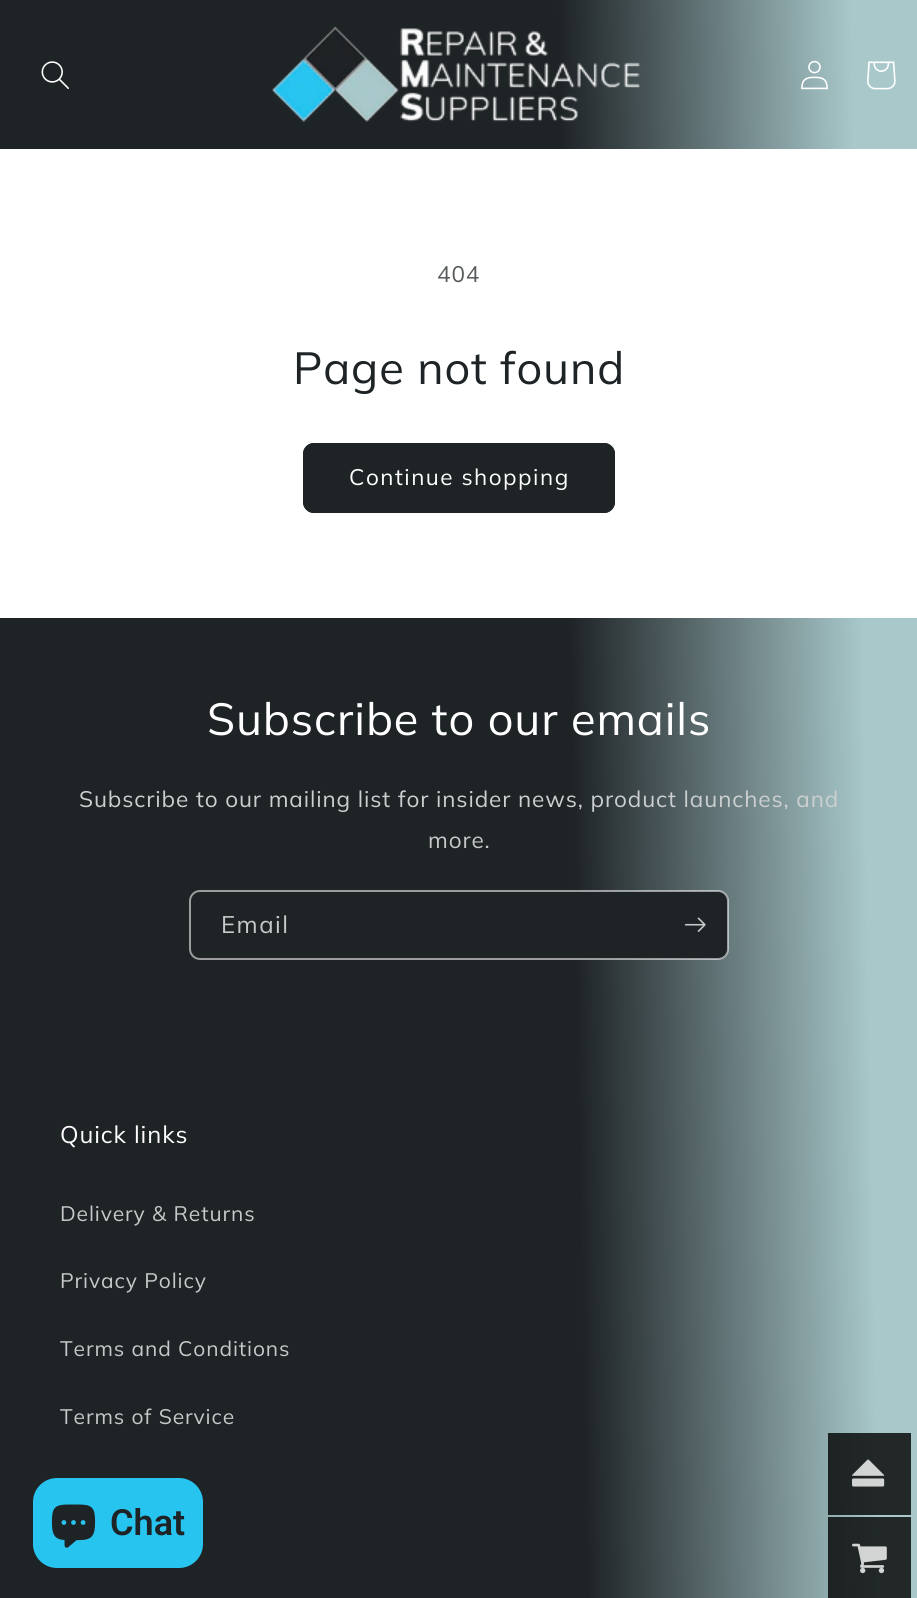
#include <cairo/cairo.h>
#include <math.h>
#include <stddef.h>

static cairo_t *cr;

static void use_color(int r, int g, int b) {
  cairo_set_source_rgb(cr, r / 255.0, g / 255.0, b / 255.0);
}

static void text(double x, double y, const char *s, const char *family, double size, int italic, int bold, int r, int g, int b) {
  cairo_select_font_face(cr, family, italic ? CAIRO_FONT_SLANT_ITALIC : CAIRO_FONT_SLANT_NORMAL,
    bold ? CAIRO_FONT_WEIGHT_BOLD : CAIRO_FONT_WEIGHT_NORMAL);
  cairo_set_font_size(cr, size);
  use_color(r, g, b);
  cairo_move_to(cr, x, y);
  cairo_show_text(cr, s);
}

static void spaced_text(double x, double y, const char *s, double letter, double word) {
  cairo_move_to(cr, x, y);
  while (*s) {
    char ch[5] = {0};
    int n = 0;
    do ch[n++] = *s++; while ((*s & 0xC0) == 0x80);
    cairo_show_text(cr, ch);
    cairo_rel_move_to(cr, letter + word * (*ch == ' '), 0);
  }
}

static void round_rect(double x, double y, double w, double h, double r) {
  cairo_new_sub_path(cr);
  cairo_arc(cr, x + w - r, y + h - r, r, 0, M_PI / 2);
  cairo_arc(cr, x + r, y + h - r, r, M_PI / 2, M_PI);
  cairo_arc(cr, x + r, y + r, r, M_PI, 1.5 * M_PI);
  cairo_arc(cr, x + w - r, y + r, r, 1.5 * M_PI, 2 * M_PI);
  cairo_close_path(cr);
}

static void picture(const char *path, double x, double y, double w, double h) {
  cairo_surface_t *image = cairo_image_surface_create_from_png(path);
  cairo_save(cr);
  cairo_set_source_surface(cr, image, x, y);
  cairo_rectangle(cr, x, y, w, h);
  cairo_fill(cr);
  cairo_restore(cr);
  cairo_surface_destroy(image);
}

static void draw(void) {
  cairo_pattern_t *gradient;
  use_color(255, 255, 255);
  cairo_paint(cr);
  gradient = cairo_pattern_create_linear(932, 791, -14, 808);
  cairo_pattern_add_color_stop_rgba(gradient, 0.07, 0.659, 0.784, 0.792, 1);
  cairo_pattern_add_color_stop_rgba(gradient, 0.38, 0.118, 0.137, 0.149, 1);
  cairo_set_source(cr, gradient);
  cairo_pattern_destroy(gradient);
  cairo_rectangle(cr, 0, 0, 917, 149);
  cairo_fill(cr);
  picture("img_01.png", 41, 61, 28, 28);
  picture("img_02.png", 272, 27, 369, 95);
  picture("img_03.png", 801, 60, 27, 30);
  picture("img_04.png", 867, 61, 29, 29);
  use_color(30, 35, 38);
  round_rect(303, 443, 312, 70, 11);
  cairo_fill(cr);
  round_rect(304, 444, 310, 68, 10);
  cairo_stroke(cr);
  gradient = cairo_pattern_create_linear(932, 791, -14, 808);
  cairo_pattern_add_color_stop_rgba(gradient, 0.07, 0.659, 0.784, 0.792, 1);
  cairo_pattern_add_color_stop_rgba(gradient, 0.38, 0.118, 0.137, 0.149, 1);
  cairo_set_source(cr, gradient);
  cairo_pattern_destroy(gradient);
  cairo_rectangle(cr, 0, 618, 917, 401);
  cairo_fill(cr);
  use_color(30, 35, 38);
  round_rect(191, 891, 537, 68, 9);
  cairo_fill(cr);
  round_rect(190, 891, 538, 68, 10);
  cairo_set_source_rgba(cr, 1, 1, 1, 0.55);
  cairo_stroke(cr);
  picture("img_05.png", 684, 917, 22, 15);
  gradient = cairo_pattern_create_linear(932, 791, -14, 808);
  cairo_pattern_add_color_stop_rgba(gradient, 0.07, 0.659, 0.784, 0.792, 1);
  cairo_pattern_add_color_stop_rgba(gradient, 0.38, 0.118, 0.137, 0.149, 1);
  cairo_set_source(cr, gradient);
  cairo_pattern_destroy(gradient);
  cairo_rectangle(cr, 0, 1019, 917, 579);
  cairo_fill(cr);
  gradient = cairo_pattern_create_linear(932, 791, -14, 808);
  cairo_pattern_add_color_stop_rgba(gradient, 0.07, 0.133, 0.157, 0.157, 1);
  cairo_pattern_add_color_stop_rgba(gradient, 0.38, 0.024, 0.027, 0.031, 1);
  cairo_set_source(cr, gradient);
  cairo_pattern_destroy(gradient);
  cairo_rectangle(cr, 828, 1517, 83, 81);
  cairo_fill(cr);
  cairo_rectangle(cr, 828, 1433, 83, 82);
  cairo_fill(cr);
  use_color(40, 196, 240);
  round_rect(33, 1478, 170, 90, 24);
  cairo_fill(cr);
  picture("img_06.png", 51, 1504, 45, 44);
  picture("img_07.png", 852, 1459, 33, 28);
  picture("img_08.png", 852, 1543, 35, 31);
  cairo_select_font_face(cr, "Muli", CAIRO_FONT_SLANT_NORMAL, CAIRO_FONT_WEIGHT_NORMAL);
  cairo_set_font_size(cr, 22.5);
  use_color(86, 90, 92);
  spaced_text(437, 282, "404", 0.9, 0);
  cairo_set_font_size(cr, 45);
  use_color(30, 35, 38);
  spaced_text(293, 384, "Page not found", 0.9, 0);
  cairo_set_font_size(cr, 22.5);
  use_color(255, 255, 255);
  spaced_text(349, 485, "Continue shopping", 1.5, 0);
  cairo_set_font_size(cr, 45);
  spaced_text(207, 735, "Subscribe to our emails", 0.9, 0);
  cairo_set_font_size(cr, 22.5);
  use_color(204, 207, 207);
  spaced_text(79, 807, "Subscribe to our mailing list for insider news, product launches, and", 0.9, 0);
  use_color(199, 200, 201);
  spaced_text(428, 848, "more.", 0.9, 0);
  cairo_set_font_size(cr, 24);
  spaced_text(221, 933, "Email", 1.5, 0);
  use_color(255, 255, 255);
  spaced_text(60, 1143, "Quick links", 0.9, 0);
  cairo_set_font_size(cr, 21);
  use_color(199, 200, 201);
  spaced_text(60, 1221, "Delivery & Returns", 0.9, 0);
  spaced_text(60, 1288, "Privacy Policy", 0.9, 0);
  spaced_text(60, 1356, "Terms and Conditions", 0.9, 0);
  spaced_text(60, 1424, "Terms of Service", 0.9, 0);
  text(110, 1535, "Chat", "Roboto SemiBold", 36, 0, 0, 30, 35, 38);
}

int main(void) {
  cairo_surface_t *surface = cairo_image_surface_create(CAIRO_FORMAT_RGB24, 917, 1598);
  cr = cairo_create(surface);
  cairo_font_options_t *options = cairo_font_options_create();
  cairo_font_options_set_hint_metrics(options, CAIRO_HINT_METRICS_OFF);
  cairo_font_options_set_hint_style(options, CAIRO_HINT_STYLE_NONE);
  cairo_set_font_options(cr, options);
  cairo_set_miter_limit(cr, 4);
  draw();
  cairo_surface_write_to_png(surface, "out.png");
  cairo_font_options_destroy(options);
  cairo_destroy(cr);
  cairo_surface_destroy(surface);
  return 0;
}
